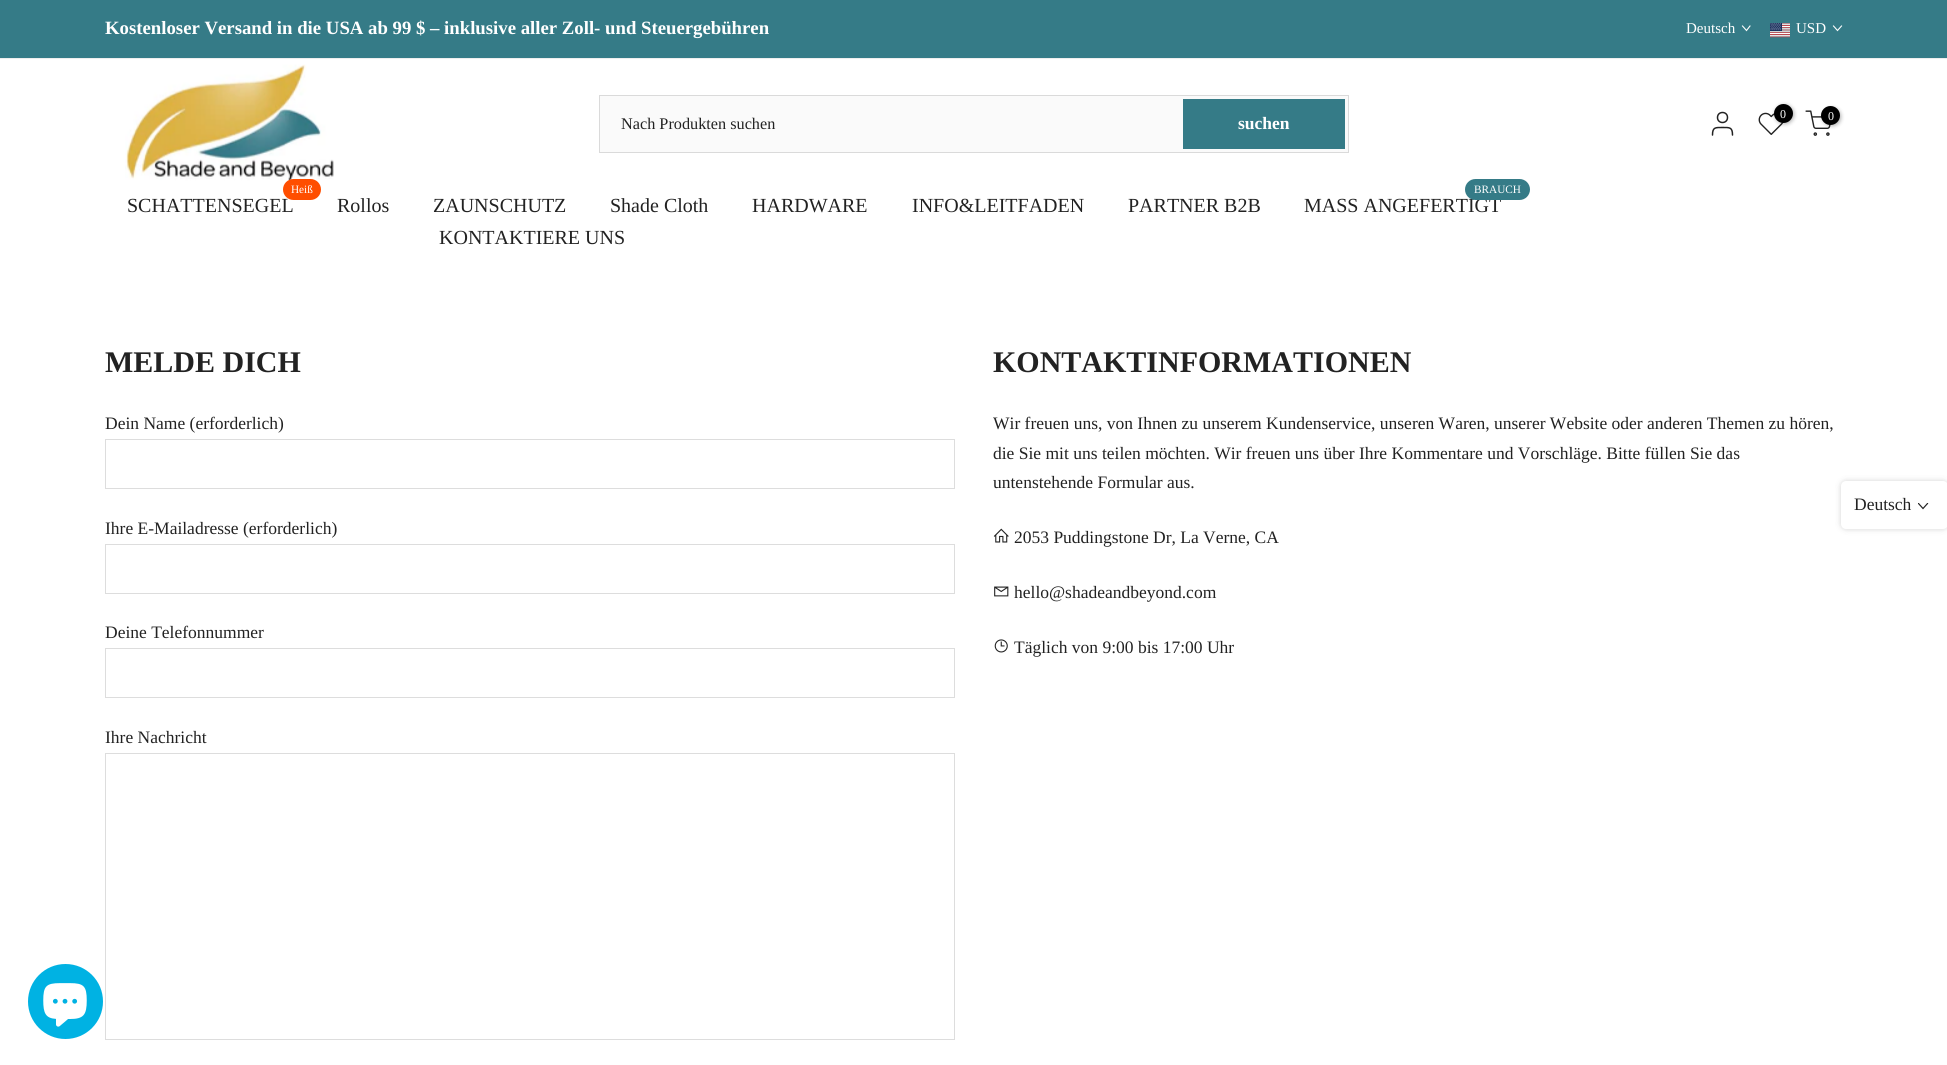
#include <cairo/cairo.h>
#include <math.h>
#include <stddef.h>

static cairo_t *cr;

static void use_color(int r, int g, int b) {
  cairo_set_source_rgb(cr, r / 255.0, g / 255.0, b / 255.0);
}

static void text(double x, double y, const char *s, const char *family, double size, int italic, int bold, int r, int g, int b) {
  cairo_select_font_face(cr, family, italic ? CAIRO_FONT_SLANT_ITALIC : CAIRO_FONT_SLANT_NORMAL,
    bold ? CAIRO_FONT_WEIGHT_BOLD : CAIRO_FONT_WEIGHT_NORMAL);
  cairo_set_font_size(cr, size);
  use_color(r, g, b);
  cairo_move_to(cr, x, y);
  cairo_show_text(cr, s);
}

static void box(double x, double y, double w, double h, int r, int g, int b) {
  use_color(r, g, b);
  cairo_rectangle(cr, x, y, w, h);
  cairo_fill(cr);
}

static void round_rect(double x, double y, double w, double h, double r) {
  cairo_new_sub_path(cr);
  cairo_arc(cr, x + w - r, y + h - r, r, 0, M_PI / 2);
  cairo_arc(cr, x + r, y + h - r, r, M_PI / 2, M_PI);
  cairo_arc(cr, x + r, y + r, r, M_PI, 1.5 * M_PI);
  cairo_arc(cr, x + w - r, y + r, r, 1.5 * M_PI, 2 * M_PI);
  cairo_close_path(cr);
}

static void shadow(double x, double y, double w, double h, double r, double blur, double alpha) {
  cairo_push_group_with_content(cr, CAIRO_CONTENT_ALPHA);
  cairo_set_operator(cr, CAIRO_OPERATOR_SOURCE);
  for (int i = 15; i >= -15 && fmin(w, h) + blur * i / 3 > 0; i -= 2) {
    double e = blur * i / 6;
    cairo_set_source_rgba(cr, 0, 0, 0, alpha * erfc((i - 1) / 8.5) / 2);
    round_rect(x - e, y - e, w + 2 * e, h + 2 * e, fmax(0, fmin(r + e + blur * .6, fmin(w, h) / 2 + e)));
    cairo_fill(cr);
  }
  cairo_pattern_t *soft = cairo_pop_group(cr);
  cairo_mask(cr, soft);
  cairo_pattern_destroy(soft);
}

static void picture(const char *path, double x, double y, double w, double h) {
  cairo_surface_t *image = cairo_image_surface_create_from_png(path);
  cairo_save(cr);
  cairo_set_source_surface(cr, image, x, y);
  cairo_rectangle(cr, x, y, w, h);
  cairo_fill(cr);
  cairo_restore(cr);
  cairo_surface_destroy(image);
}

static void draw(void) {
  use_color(255, 255, 255);
  cairo_paint(cr);
  box(0, 0, 1947, 58, 53, 123, 135);
  box(0, 58, 1947, 1, 238, 238, 238);
  cairo_new_path(cr);
  cairo_move_to(cr, 1750, 26);
  cairo_line_to(cr, 1746.5, 30.5);
  cairo_line_to(cr, 1742.5, 26);
  use_color(255, 255, 255);
  cairo_set_line_width(cr, 1.1);
  cairo_set_line_cap(cr, CAIRO_LINE_CAP_SQUARE);
  cairo_stroke(cr);
  picture("img_01.png", 1770, 23, 20, 15);
  cairo_new_path(cr);
  cairo_move_to(cr, 1841.5, 26);
  cairo_line_to(cr, 1837.5, 30.5);
  cairo_line_to(cr, 1833.5, 26);
  cairo_stroke(cr);
  picture("img_02.png", 125, 64, 209, 117);
  use_color(250, 250, 250);
  cairo_rectangle(cr, 599.5, 95.5, 749, 57);
  cairo_fill_preserve(cr);
  use_color(218, 218, 218);
  cairo_set_line_width(cr, 1);
  cairo_set_line_cap(cr, CAIRO_LINE_CAP_BUTT);
  cairo_stroke(cr);
  box(1183, 99, 162, 50, 53, 123, 135);
  cairo_arc(cr, 1722.5, 117.5, 5, 0, 2 * M_PI);
  use_color(34, 34, 34);
  cairo_set_line_width(cr, 1.5);
  cairo_stroke(cr);
  cairo_new_path(cr);
  cairo_move_to(cr, 1732.5, 135);
  cairo_curve_to(cr, 1732.5, 127, 1729.5, 127.5, 1722.5, 127.5);
  cairo_curve_to(cr, 1715.5, 127.5, 1712.5, 127, 1712.5, 135);
  cairo_set_line_cap(cr, CAIRO_LINE_CAP_ROUND);
  cairo_set_line_join(cr, CAIRO_LINE_JOIN_ROUND);
  cairo_stroke(cr);
  picture("img_03.png", 1758, 112, 26, 23);
  use_color(0, 0, 0);
  shadow(1775, 105, 19, 19, 9.5, 2, 0.3);
  use_color(0, 0, 0);
  cairo_arc(cr, 1783.5, 113.5, 9.5, 0, 2 * M_PI);
  cairo_fill(cr);
  picture("img_04.png", 1805, 110, 26, 26);
  use_color(0, 0, 0);
  shadow(1823, 108, 18, 18, 9, 2, 0.3);
  use_color(0, 0, 0);
  cairo_arc(cr, 1830.5, 115.5, 9.5, 0, 2 * M_PI);
  cairo_fill(cr);
  cairo_rectangle(cr, 105.5, 439.5, 849, 49);
  use_color(221, 221, 221);
  cairo_set_line_width(cr, 1);
  cairo_set_line_cap(cr, CAIRO_LINE_CAP_BUTT);
  cairo_set_line_join(cr, CAIRO_LINE_JOIN_MITER);
  cairo_stroke(cr);
  cairo_rectangle(cr, 105.5, 544.5, 849, 49);
  cairo_stroke(cr);
  cairo_rectangle(cr, 105.5, 648.5, 849, 49);
  cairo_stroke(cr);
  cairo_rectangle(cr, 105.5, 753.5, 849, 286);
  cairo_stroke(cr);
  picture("img_05.png", 993, 528, 16, 15);
  picture("img_06.png", 994, 586, 15, 11);
  picture("img_07.png", 994, 639, 14, 14);
  use_color(0, 0, 0);
  shadow(1841, 481, 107, 48, 5, 3, 0.17);
  use_color(255, 255, 255);
  round_rect(1841, 481, 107, 48, 5);
  cairo_fill(cr);
  cairo_save(cr);
  cairo_rectangle(cr, 1918, 503, 11, 7);
  cairo_clip(cr);
  cairo_new_path(cr);
  cairo_move_to(cr, 1927.5, 503.5);
  cairo_line_to(cr, 1923, 508.5);
  cairo_line_to(cr, 1918.5, 503.5);
  use_color(34, 34, 34);
  cairo_set_line_width(cr, 1.2);
  cairo_set_line_cap(cr, CAIRO_LINE_CAP_SQUARE);
  cairo_stroke(cr);
  cairo_restore(cr);
  use_color(0, 178, 227);
  cairo_arc(cr, 65.5, 1001.5, 37.5, 0, 2 * M_PI);
  cairo_fill(cr);
  picture("img_08.png", 43, 983, 44, 44);
  text(105, 34, "Kostenloser Versand in die USA ab 99 $ – inklusive aller Zoll- und Steuergebühren", "Liberation Serif", 18.75, 0, 1, 255, 255, 255);
  text(1686, 33, "Deutsch", "Liberation Serif", 15, 0, 0, 255, 255, 255);
  text(1796, 33, "USD", "Liberation Serif", 15, 0, 0, 255, 255, 255);
  text(621, 129, "Nach Produkten suchen", "Liberation Serif", 16.25, 0, 0, 34, 34, 34);
  text(1238, 129, "suchen", "Liberation Serif", 17.5, 0, 1, 255, 255, 255);
  text(1780, 118, "0", "Liberation Serif", 12, 0, 0, 255, 255, 255);
  text(1828, 120, "0", "Liberation Serif", 12, 0, 0, 255, 255, 255);
  text(127, 212, "SCHATTENSEGEL", "Liberation Serif", 20, 0, 0, 34, 34, 34);
  use_color(255, 78, 0);
  round_rect(283, 179, 38, 21, 10.5);
  cairo_fill(cr);
  text(291, 193, "Heiß", "Liberation Serif", 11.25, 0, 0, 255, 255, 255);
  text(337, 212, "Rollos", "Liberation Serif", 20, 0, 0, 34, 34, 34);
  text(433, 212, "ZAUNSCHUTZ", "Liberation Serif", 20, 0, 0, 34, 34, 34);
  text(610, 212, "Shade Cloth", "Liberation Serif", 20, 0, 0, 34, 34, 34);
  text(752, 212, "HARDWARE", "Liberation Serif", 20, 0, 0, 34, 34, 34);
  text(912, 212, "INFO&LEITFADEN", "Liberation Serif", 20, 0, 0, 34, 34, 34);
  text(1128, 212, "PARTNER B2B", "Liberation Serif", 20, 0, 0, 34, 34, 34);
  text(1304, 212, "MASS ANGEFERTIGT", "Liberation Serif", 20, 0, 0, 34, 34, 34);
  use_color(53, 123, 135);
  round_rect(1465, 179, 65, 21, 10.5);
  cairo_fill(cr);
  text(1474, 193, "BRAUCH", "Liberation Serif", 11.25, 0, 0, 255, 255, 255);
  text(439, 244, "KONTAKTIERE UNS", "Liberation Serif", 20, 0, 0, 34, 34, 34);
  text(105, 372, "MELDE DICH", "Liberation Serif", 30, 0, 1, 34, 34, 34);
  text(105, 429, "Dein Name (erforderlich)", "Liberation Serif", 17.5, 0, 0, 34, 34, 34);
  text(105, 534, "Ihre E-Mailadresse (erforderlich)", "Liberation Serif", 17.5, 0, 0, 34, 34, 34);
  text(105, 638, "Deine Telefonnummer", "Liberation Serif", 17.5, 0, 0, 34, 34, 34);
  text(105, 743, "Ihre Nachricht", "Liberation Serif", 17.5, 0, 0, 34, 34, 34);
  text(993, 372, "KONTAKTINFORMATIONEN", "Liberation Serif", 30, 0, 1, 34, 34, 34);
  text(993, 429, "Wir freuen uns, von Ihnen zu unserem Kundenservice, unseren Waren, unserer Website oder anderen Themen zu hören,", "Liberation Serif", 17.5, 0, 0, 34, 34, 34);
  text(993, 459, "die Sie mit uns teilen möchten. Wir freuen uns über Ihre Kommentare und Vorschläge. Bitte füllen Sie das", "Liberation Serif", 17.5, 0, 0, 34, 34, 34);
  text(993, 488, "untenstehende Formular aus.", "Liberation Serif", 17.5, 0, 0, 34, 34, 34);
  text(1014, 543, "2053 Puddingstone Dr, La Verne, CA", "Liberation Serif", 17.5, 0, 0, 34, 34, 34);
  text(1014, 598, "hello@shadeandbeyond.com", "Liberation Serif", 17.5, 0, 0, 34, 34, 34);
  text(1014, 653, "Täglich von 9:00 bis 17:00 Uhr", "Liberation Serif", 17.5, 0, 0, 34, 34, 34);
  text(1854, 510, "Deutsch", "Liberation Serif", 17.5, 0, 0, 34, 34, 34);
}

int main(void) {
  cairo_surface_t *surface = cairo_image_surface_create(CAIRO_FORMAT_RGB24, 1947, 1065);
  cr = cairo_create(surface);
  cairo_font_options_t *options = cairo_font_options_create();
  cairo_font_options_set_hint_metrics(options, CAIRO_HINT_METRICS_OFF);
  cairo_font_options_set_hint_style(options, CAIRO_HINT_STYLE_NONE);
  cairo_set_font_options(cr, options);
  cairo_set_miter_limit(cr, 4);
  draw();
  cairo_surface_write_to_png(surface, "out.png");
  cairo_font_options_destroy(options);
  cairo_destroy(cr);
  cairo_surface_destroy(surface);
  return 0;
}
